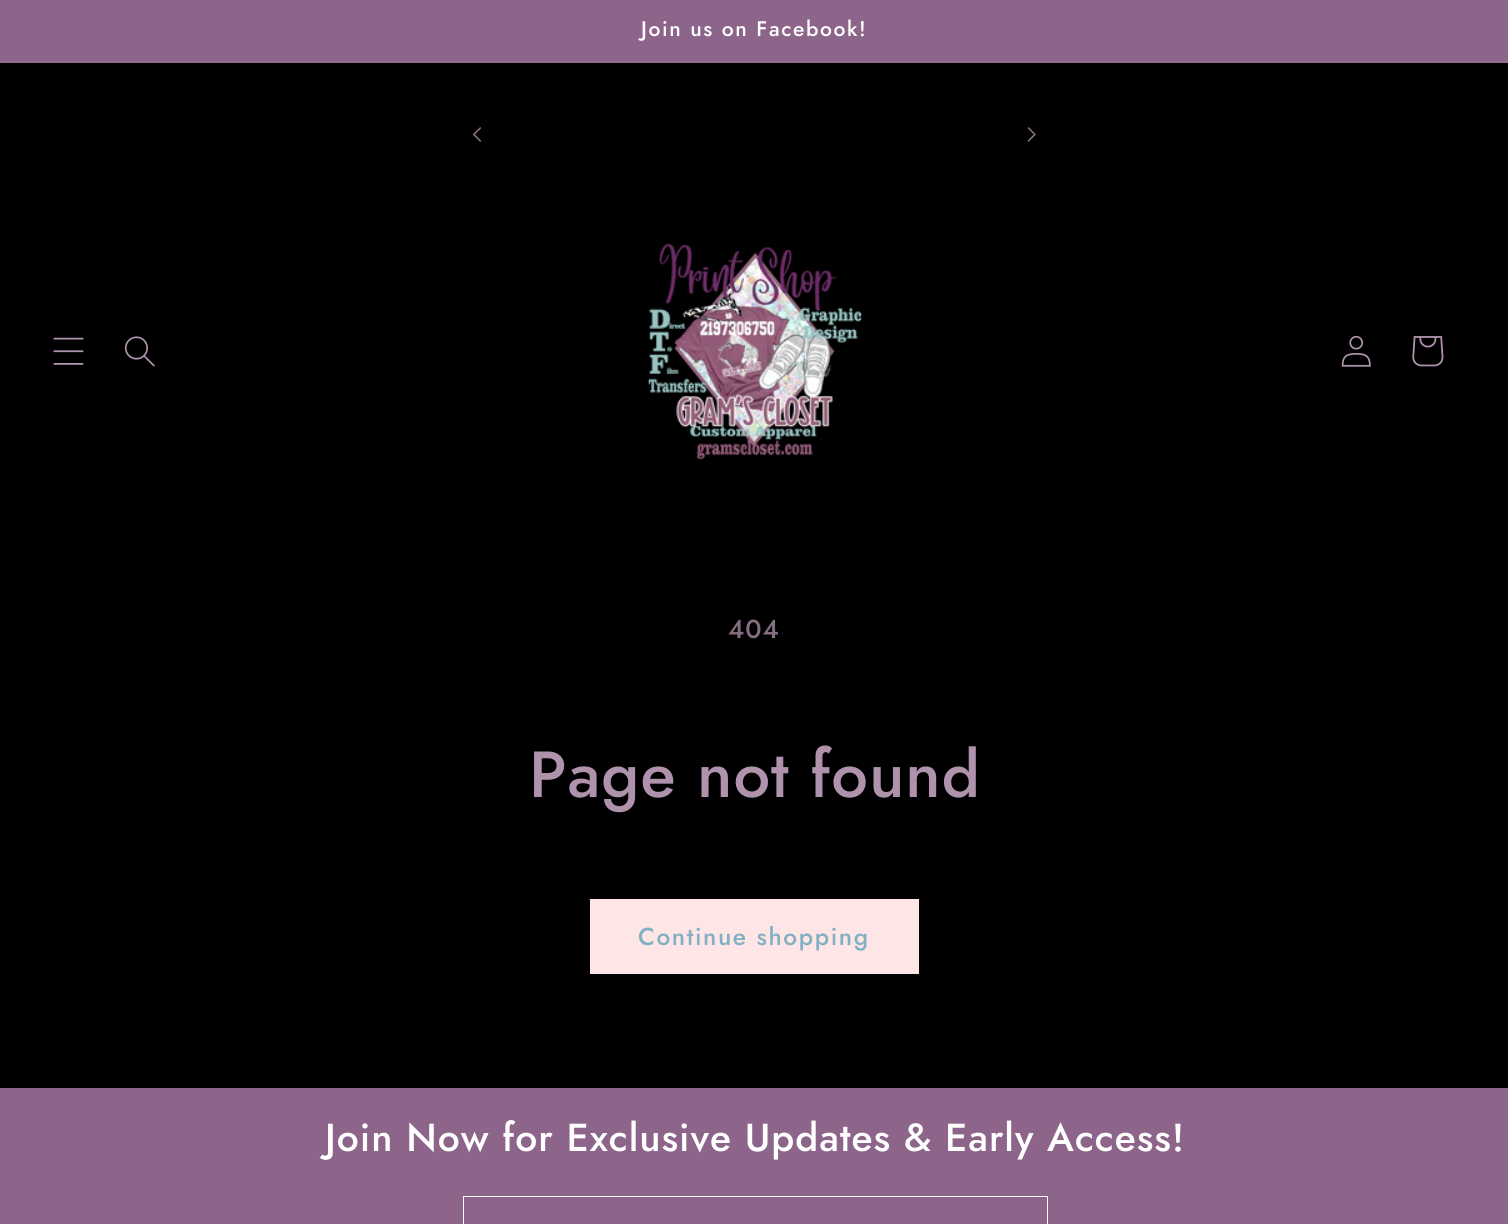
#include <cairo/cairo.h>
#include <math.h>
#include <stddef.h>

static cairo_t *cr;

static void use_color(int r, int g, int b) {
  cairo_set_source_rgb(cr, r / 255.0, g / 255.0, b / 255.0);
}

static void spaced_text(double x, double y, const char *s, double letter, double word) {
  cairo_move_to(cr, x, y);
  while (*s) {
    char ch[5] = {0};
    int n = 0;
    do ch[n++] = *s++; while ((*s & 0xC0) == 0x80);
    cairo_show_text(cr, ch);
    cairo_rel_move_to(cr, letter + word * (*ch == ' '), 0);
  }
}

static void box(double x, double y, double w, double h, int r, int g, int b) {
  use_color(r, g, b);
  cairo_rectangle(cr, x, y, w, h);
  cairo_fill(cr);
}

static void picture(const char *path, double x, double y, double w, double h) {
  cairo_surface_t *image = cairo_image_surface_create_from_png(path);
  cairo_save(cr);
  cairo_set_source_surface(cr, image, x, y);
  cairo_rectangle(cr, x, y, w, h);
  cairo_fill(cr);
  cairo_restore(cr);
  cairo_surface_destroy(image);
}

static void draw(void) {
  use_color(0, 0, 0);
  cairo_paint(cr);
  box(0, 0, 1508, 63, 141, 101, 139);
  box(0, 61, 1508, 1, 150, 113, 148);
  picture("img_01.png", 473, 127, 8, 15);
  picture("img_02.png", 1027, 127, 9, 15);
  picture("img_03.png", 53, 337, 31, 28);
  picture("img_04.png", 124, 336, 31, 31);
  picture("img_05.png", 648, 243, 214, 216);
  picture("img_06.png", 1341, 335, 30, 32);
  picture("img_07.png", 1412, 336, 32, 31);
  box(590, 899, 329, 75, 255, 230, 230);
  box(0, 1088, 1508, 136, 141, 101, 139);
  cairo_rectangle(cr, 463.5, 1196.5, 584, 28);
  use_color(255, 255, 255);
  cairo_set_line_width(cr, 1);
  cairo_stroke(cr);
  cairo_select_font_face(cr, "Jost Medium", CAIRO_FONT_SLANT_NORMAL, CAIRO_FONT_WEIGHT_NORMAL);
  cairo_set_font_size(cr, 21.1);
  spaced_text(641, 36, "Join us on Facebook!", 1.6, 0);
  cairo_set_font_size(cr, 26);
  use_color(131, 110, 130);
  spaced_text(728, 638, "404", 1, 0);
  cairo_set_font_size(cr, 65);
  use_color(175, 147, 173);
  spaced_text(529, 797, "Page not found", 1, 0);
  cairo_set_font_size(cr, 24.4);
  use_color(129, 176, 195);
  spaced_text(638, 945, "Continue shopping", 1.6, 0);
  cairo_set_font_size(cr, 39);
  use_color(255, 255, 255);
  spaced_text(325, 1151, "Join Now for Exclusive Updates & Early Access!", 1, 0);
}

int main(void) {
  cairo_surface_t *surface = cairo_image_surface_create(CAIRO_FORMAT_RGB24, 1508, 1224);
  cr = cairo_create(surface);
  cairo_font_options_t *options = cairo_font_options_create();
  cairo_font_options_set_hint_metrics(options, CAIRO_HINT_METRICS_OFF);
  cairo_font_options_set_hint_style(options, CAIRO_HINT_STYLE_NONE);
  cairo_set_font_options(cr, options);
  cairo_set_miter_limit(cr, 4);
  draw();
  cairo_surface_write_to_png(surface, "out.png");
  cairo_font_options_destroy(options);
  cairo_destroy(cr);
  cairo_surface_destroy(surface);
  return 0;
}
